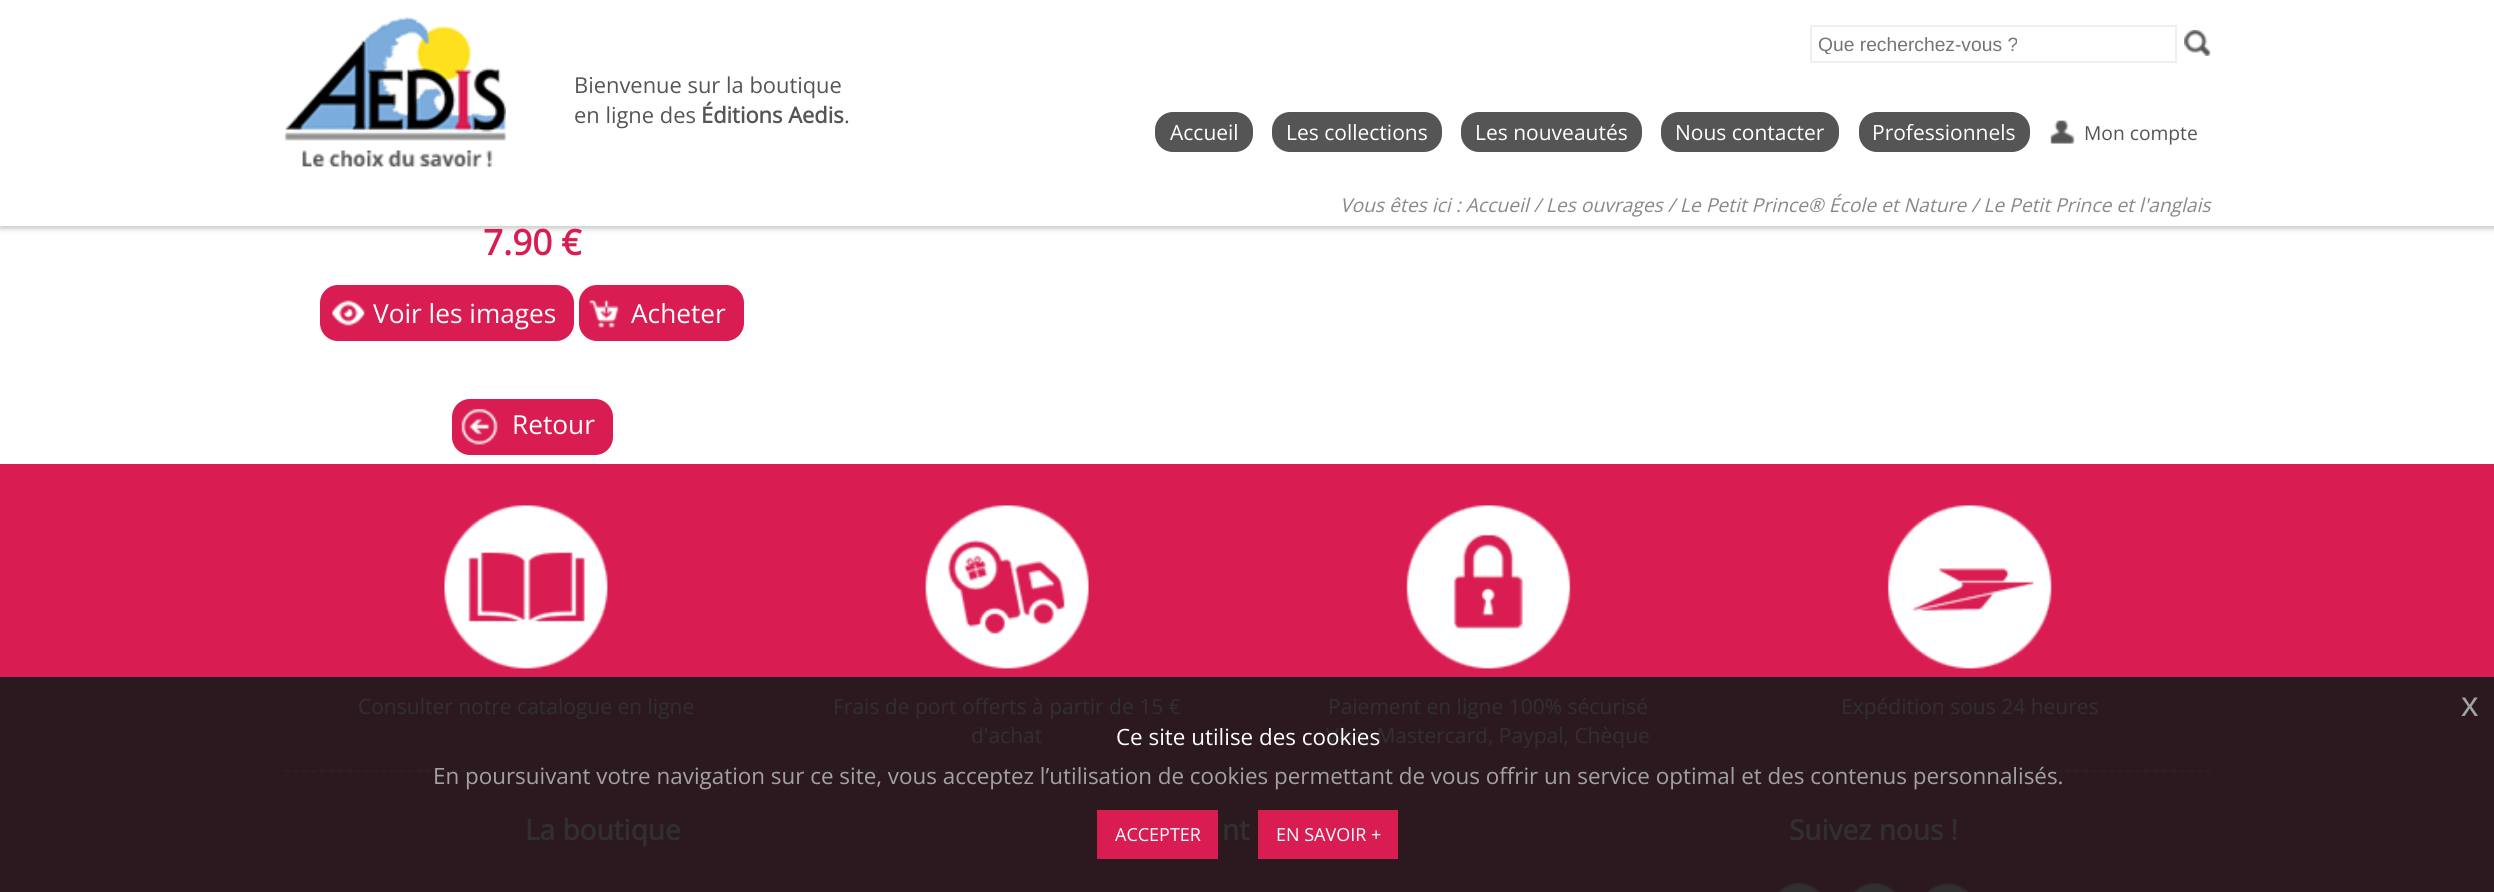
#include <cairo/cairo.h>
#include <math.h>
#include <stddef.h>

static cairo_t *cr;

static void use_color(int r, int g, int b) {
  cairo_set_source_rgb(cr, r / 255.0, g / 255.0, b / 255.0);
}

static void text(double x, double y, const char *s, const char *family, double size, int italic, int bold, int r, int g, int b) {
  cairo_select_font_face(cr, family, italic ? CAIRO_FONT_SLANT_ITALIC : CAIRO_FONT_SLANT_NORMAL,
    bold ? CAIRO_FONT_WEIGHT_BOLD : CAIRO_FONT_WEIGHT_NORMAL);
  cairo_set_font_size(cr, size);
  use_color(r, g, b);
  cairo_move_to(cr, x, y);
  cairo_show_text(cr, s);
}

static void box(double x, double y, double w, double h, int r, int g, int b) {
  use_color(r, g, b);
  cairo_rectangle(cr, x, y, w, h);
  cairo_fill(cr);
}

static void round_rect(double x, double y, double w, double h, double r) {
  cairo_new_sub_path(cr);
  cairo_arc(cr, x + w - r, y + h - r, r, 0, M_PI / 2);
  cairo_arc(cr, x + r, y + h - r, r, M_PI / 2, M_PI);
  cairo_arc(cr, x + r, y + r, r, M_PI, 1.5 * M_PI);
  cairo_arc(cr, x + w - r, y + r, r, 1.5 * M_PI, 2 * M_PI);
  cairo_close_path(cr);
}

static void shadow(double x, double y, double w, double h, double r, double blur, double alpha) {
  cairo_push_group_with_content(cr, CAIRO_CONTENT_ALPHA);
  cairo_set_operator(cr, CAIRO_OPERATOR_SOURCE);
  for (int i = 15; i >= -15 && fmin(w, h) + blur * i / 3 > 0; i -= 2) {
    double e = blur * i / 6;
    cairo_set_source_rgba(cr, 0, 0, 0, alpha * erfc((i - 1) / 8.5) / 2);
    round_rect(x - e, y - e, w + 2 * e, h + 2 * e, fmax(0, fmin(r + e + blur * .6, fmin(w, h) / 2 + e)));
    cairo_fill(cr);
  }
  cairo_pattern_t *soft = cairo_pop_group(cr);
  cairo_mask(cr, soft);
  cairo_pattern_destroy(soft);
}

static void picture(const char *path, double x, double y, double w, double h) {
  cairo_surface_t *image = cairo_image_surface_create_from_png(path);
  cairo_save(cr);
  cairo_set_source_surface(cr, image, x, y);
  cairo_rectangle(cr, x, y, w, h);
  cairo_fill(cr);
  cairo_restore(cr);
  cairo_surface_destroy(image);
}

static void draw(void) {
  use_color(255, 255, 255);
  cairo_paint(cr);
  use_color(204, 204, 204);
  shadow(0, 4, 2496, 225, 0, 2.5, 1);
  box(0, 0, 2494, 226, 255, 255, 255);
  picture("img_01.png", 285, 17, 221, 152);
  cairo_rectangle(cr, 1811, 26, 365, 36);
  use_color(239, 239, 239);
  cairo_stroke(cr);
  picture("img_02.png", 2184, 29, 27, 27);
  use_color(85, 85, 85);
  round_rect(1155, 112, 98, 40, 18);
  cairo_fill(cr);
  round_rect(1272, 112, 170, 40, 18);
  cairo_fill(cr);
  round_rect(1461, 112, 181, 40, 18);
  cairo_fill(cr);
  round_rect(1661, 112, 178, 40, 18);
  cairo_fill(cr);
  round_rect(1859, 112, 171, 40, 18);
  cairo_fill(cr);
  picture("img_03.png", 2050, 120, 25, 24);
  use_color(217, 28, 82);
  round_rect(320, 285, 254, 56, 18);
  cairo_fill(cr);
  picture("img_04.png", 332, 300, 33, 26);
  round_rect(579, 285, 165, 56, 18);
  cairo_fill(cr);
  picture("img_05.png", 589, 300, 30, 28);
  round_rect(452, 399, 161, 56, 18);
  cairo_fill(cr);
  picture("img_06.png", 461, 408, 37, 37);
  box(0, 464, 2494, 213, 217, 28, 82);
  box(0, 677, 2494, 215, 44, 25, 31);
  picture("img_07.png", 444, 505, 164, 164);
  picture("img_08.png", 925, 505, 164, 164);
  picture("img_09.png", 1406, 505, 165, 164);
  picture("img_10.png", 1887, 505, 165, 164);
  cairo_new_path(cr);
  cairo_move_to(cr, 285, 771);
  cairo_line_to(cr, 2210, 771);
  use_color(45, 33, 37);
  cairo_set_line_width(cr, 1.8);
  cairo_set_dash(cr, (double[]){5.25, 3.52}, 2, 0);
  cairo_stroke(cr);
  picture("img_11.png", 1777, 883, 44, 9);
  picture("img_12.png", 1853, 883, 43, 9);
  picture("img_13.png", 1926, 883, 44, 9);
  box(1097, 810, 121, 49, 217, 28, 82);
  box(1258, 810, 140, 49, 217, 28, 82);
  text(574, 93, "Bienvenue sur la boutique", "Open Sans", 21.9, 0, 0, 85, 85, 85);
  text(574, 123, "en ligne des", "Open Sans", 21.9, 0, 0, 85, 85, 85);
  text(701, 123, "Éditions Aedis", "Open Sans", 21.9, 0, 1, 85, 85, 85);
  text(844, 123, ".", "Open Sans", 21.9, 0, 0, 85, 85, 85);
  cairo_save(cr);
  cairo_rectangle(cr, 1818, 33, 350, 21);
  cairo_clip(cr);
  text(1818, 51, "Que recherchez-vous ?", "Liberation Sans", 19.25, 0, 0, 117, 117, 117);
  cairo_restore(cr);
  text(1170, 140, "Accueil", "Open Sans", 21, 0, 0, 255, 255, 255);
  text(1286, 140, "Les collections", "Open Sans", 21, 0, 0, 255, 255, 255);
  text(1475, 140, "Les nouveautés", "Open Sans", 21, 0, 0, 255, 255, 255);
  text(1675, 140, "Nous contacter", "Open Sans", 21, 0, 0, 255, 255, 255);
  text(1872, 140, "Professionnels", "Open Sans", 21, 0, 0, 255, 255, 255);
  text(2084, 140, "Mon compte", "Open Sans", 19.25, 0, 0, 85, 85, 85);
  text(1340, 212, "Vous êtes ici : Accueil / Les ouvrages / Le Petit Prince® École et Nature / Le Petit Prince et l'anglais", "Open Sans", 19.25, 1, 0, 137, 137, 137);
  text(483, 255, "7.90 €", "Open Sans", 35, 0, 1, 217, 28, 82);
  text(373, 323, "Voir les images", "Open Sans", 26.25, 0, 0, 255, 255, 255);
  text(631, 323, "Acheter", "Open Sans", 26.25, 0, 0, 255, 255, 255);
  text(512, 434, "Retour", "Open Sans", 26.25, 0, 0, 255, 255, 255);
  text(358, 714, "Consulter notre catalogue en ligne", "Open Sans", 21, 0, 0, 48, 48, 48);
  text(833, 714, "Frais de port offerts à partir de 15 €", "Open Sans", 21, 0, 0, 48, 48, 48);
  text(971, 743, "d'achat", "Open Sans", 21, 0, 0, 48, 48, 48);
  text(1328, 714, "Paiement en ligne 100% sécurisé", "Open Sans", 21, 0, 0, 48, 48, 48);
  text(1326, 743, "Visa, Mastercard, Paypal, Chèque", "Open Sans", 21, 0, 0, 48, 48, 48);
  text(1841, 714, "Expédition sous 24 heures", "Open Sans", 21, 0, 0, 48, 48, 48);
  text(525, 840, "La boutique", "Open Sans", 28, 0, 1, 48, 48, 48);
  text(1222, 840, "nt", "Open Sans", 28, 0, 1, 48, 48, 48);
  text(1789, 840, "Suivez nous !", "Open Sans", 28, 0, 1, 48, 48, 48);
  text(2461, 716, "x", "Liberation Sans", 35, 0, 0, 162, 162, 162);
  text(1116, 745, "Ce site utilise des cookies", "Open Sans", 22.4, 0, 0, 255, 255, 255);
  text(433, 784, "En poursuivant votre navigation sur ce site, vous acceptez l’utilisation de cookies permettant de vous offrir un service optimal et des contenus personnalisés.", "Open Sans", 22.4, 0, 0, 162, 162, 162);
  text(1115, 841, "ACCEPTER", "Open Sans", 18, 0, 0, 255, 255, 255);
  text(1276, 841, "EN SAVOIR +", "Open Sans", 18, 0, 0, 255, 255, 255);
}

int main(void) {
  cairo_surface_t *surface = cairo_image_surface_create(CAIRO_FORMAT_RGB24, 2494, 892);
  cr = cairo_create(surface);
  cairo_font_options_t *options = cairo_font_options_create();
  cairo_font_options_set_hint_metrics(options, CAIRO_HINT_METRICS_OFF);
  cairo_font_options_set_hint_style(options, CAIRO_HINT_STYLE_NONE);
  cairo_set_font_options(cr, options);
  cairo_set_miter_limit(cr, 4);
  draw();
  cairo_surface_write_to_png(surface, "out.png");
  cairo_font_options_destroy(options);
  cairo_destroy(cr);
  cairo_surface_destroy(surface);
  return 0;
}
